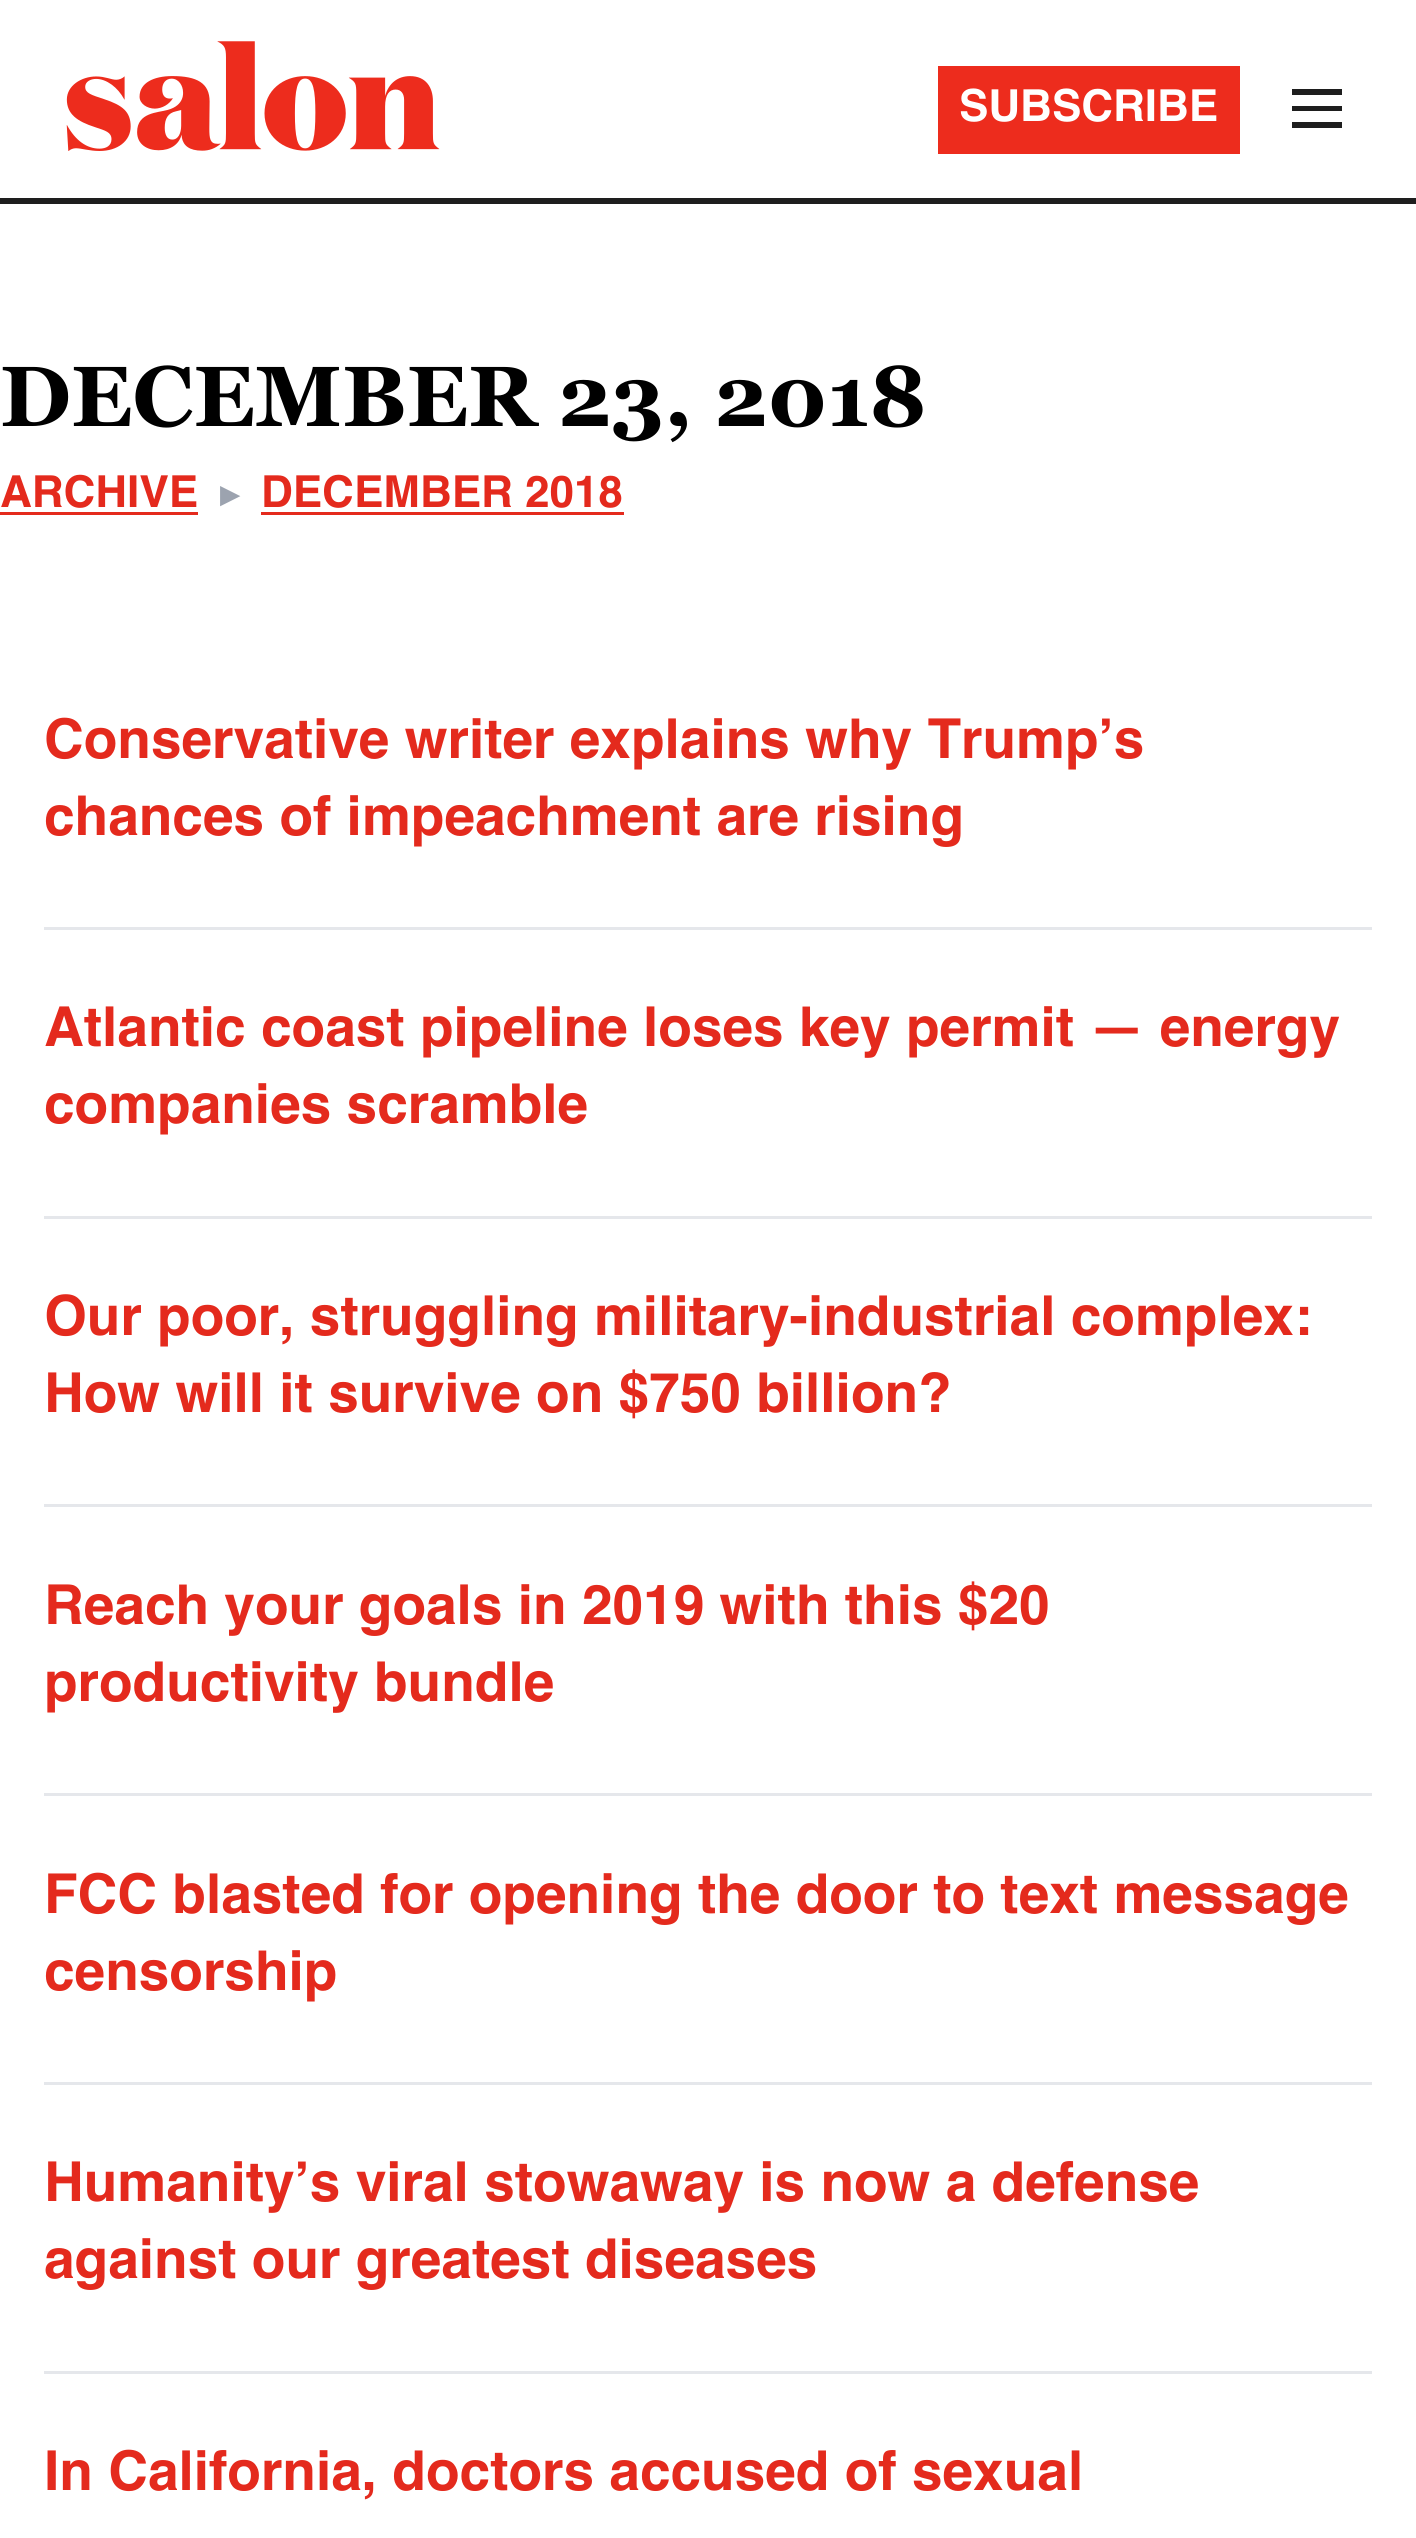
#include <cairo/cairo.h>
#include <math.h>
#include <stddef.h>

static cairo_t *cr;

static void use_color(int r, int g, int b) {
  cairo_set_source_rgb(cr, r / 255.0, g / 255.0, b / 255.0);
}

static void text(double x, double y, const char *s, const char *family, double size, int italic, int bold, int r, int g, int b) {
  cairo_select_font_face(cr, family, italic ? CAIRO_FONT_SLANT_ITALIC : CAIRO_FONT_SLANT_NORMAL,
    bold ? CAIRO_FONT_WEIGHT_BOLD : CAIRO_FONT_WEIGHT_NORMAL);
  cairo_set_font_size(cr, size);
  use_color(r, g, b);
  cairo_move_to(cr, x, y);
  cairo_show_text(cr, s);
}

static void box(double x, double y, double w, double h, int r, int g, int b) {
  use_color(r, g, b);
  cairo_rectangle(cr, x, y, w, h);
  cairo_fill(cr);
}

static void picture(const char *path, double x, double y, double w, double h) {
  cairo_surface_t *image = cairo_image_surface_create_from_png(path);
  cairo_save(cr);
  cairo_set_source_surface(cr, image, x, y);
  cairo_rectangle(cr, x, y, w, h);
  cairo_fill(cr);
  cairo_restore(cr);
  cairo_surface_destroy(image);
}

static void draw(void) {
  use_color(255, 255, 255);
  cairo_paint(cr);
  box(0, 198, 1416, 6, 30, 30, 30);
  picture("img_01.png", 66, 41, 374, 110);
  box(938, 66, 302, 88, 237, 44, 29);
  use_color(30, 30, 30);
  cairo_new_path(cr);
  cairo_move_to(cr, 1292, 89);
  cairo_line_to(cr, 1342, 89);
  cairo_line_to(cr, 1342, 95);
  cairo_line_to(cr, 1292, 95);
  cairo_close_path(cr);
  cairo_move_to(cr, 1292, 106);
  cairo_line_to(cr, 1342, 106);
  cairo_line_to(cr, 1342, 111);
  cairo_line_to(cr, 1292, 111);
  cairo_close_path(cr);
  cairo_move_to(cr, 1292, 122);
  cairo_line_to(cr, 1342, 122);
  cairo_line_to(cr, 1342, 128);
  cairo_line_to(cr, 1292, 128);
  cairo_close_path(cr);
  cairo_fill(cr);
  box(0, 512, 198, 3, 228, 42, 29);
  box(261, 512, 363, 3, 228, 42, 29);
  box(44, 927, 1328, 3, 229, 231, 235);
  box(44, 1216, 1328, 3, 229, 231, 235);
  box(44, 1504, 1328, 3, 229, 231, 235);
  box(44, 1793, 1328, 3, 229, 231, 235);
  box(44, 2082, 1328, 3, 229, 231, 235);
  box(44, 2371, 1328, 3, 229, 231, 235);
  text(959, 121, "SUBSCRIBE", "Helvetica", 44, 0, 1, 255, 255, 255);
  text(0, 426, "DECEMBER 23, 2018", "Georgia", 85.25, 0, 1, 0, 0, 0);
  text(0, 507, "ARCHIVE", "Helvetica", 44, 0, 1, 228, 42, 29);
  text(220, 503, "▶", "DejaVu Sans", 25, 0, 1, 156, 163, 175);
  text(261, 507, "DECEMBER 2018", "Helvetica", 44, 0, 1, 228, 42, 29);
  text(44, 758, "Conservative writer explains why Trump’s", "Helvetica", 55, 0, 1, 228, 42, 29);
  text(44, 835, "chances of impeachment are rising", "Helvetica", 55, 0, 1, 228, 42, 29);
  text(44, 1046, "Atlantic coast pipeline loses key permit — energy", "Helvetica", 55, 0, 1, 228, 42, 29);
  text(44, 1123, "companies scramble", "Helvetica", 55, 0, 1, 228, 42, 29);
  text(44, 1335, "Our poor, struggling military-industrial complex:", "Helvetica", 55, 0, 1, 228, 42, 29);
  text(44, 1412, "How will it survive on $750 billion?", "Helvetica", 55, 0, 1, 228, 42, 29);
  text(44, 1624, "Reach your goals in 2019 with this $20", "Helvetica", 55, 0, 1, 228, 42, 29);
  text(44, 1701, "productivity bundle", "Helvetica", 55, 0, 1, 228, 42, 29);
  text(44, 1913, "FCC blasted for opening the door to text message", "Helvetica", 55, 0, 1, 228, 42, 29);
  text(44, 1990, "censorship", "Helvetica", 55, 0, 1, 228, 42, 29);
  text(44, 2201, "Humanity’s viral stowaway is now a defense", "Helvetica", 55, 0, 1, 228, 42, 29);
  text(44, 2278, "against our greatest diseases", "Helvetica", 55, 0, 1, 228, 42, 29);
  text(44, 2490, "In California, doctors accused of sexual", "Helvetica", 55, 0, 1, 228, 42, 29);
}

int main(void) {
  cairo_surface_t *surface = cairo_image_surface_create(CAIRO_FORMAT_RGB24, 1416, 2538);
  cr = cairo_create(surface);
  cairo_font_options_t *options = cairo_font_options_create();
  cairo_font_options_set_hint_metrics(options, CAIRO_HINT_METRICS_OFF);
  cairo_font_options_set_hint_style(options, CAIRO_HINT_STYLE_NONE);
  cairo_set_font_options(cr, options);
  cairo_set_miter_limit(cr, 4);
  draw();
  cairo_surface_write_to_png(surface, "out.png");
  cairo_font_options_destroy(options);
  cairo_destroy(cr);
  cairo_surface_destroy(surface);
  return 0;
}
